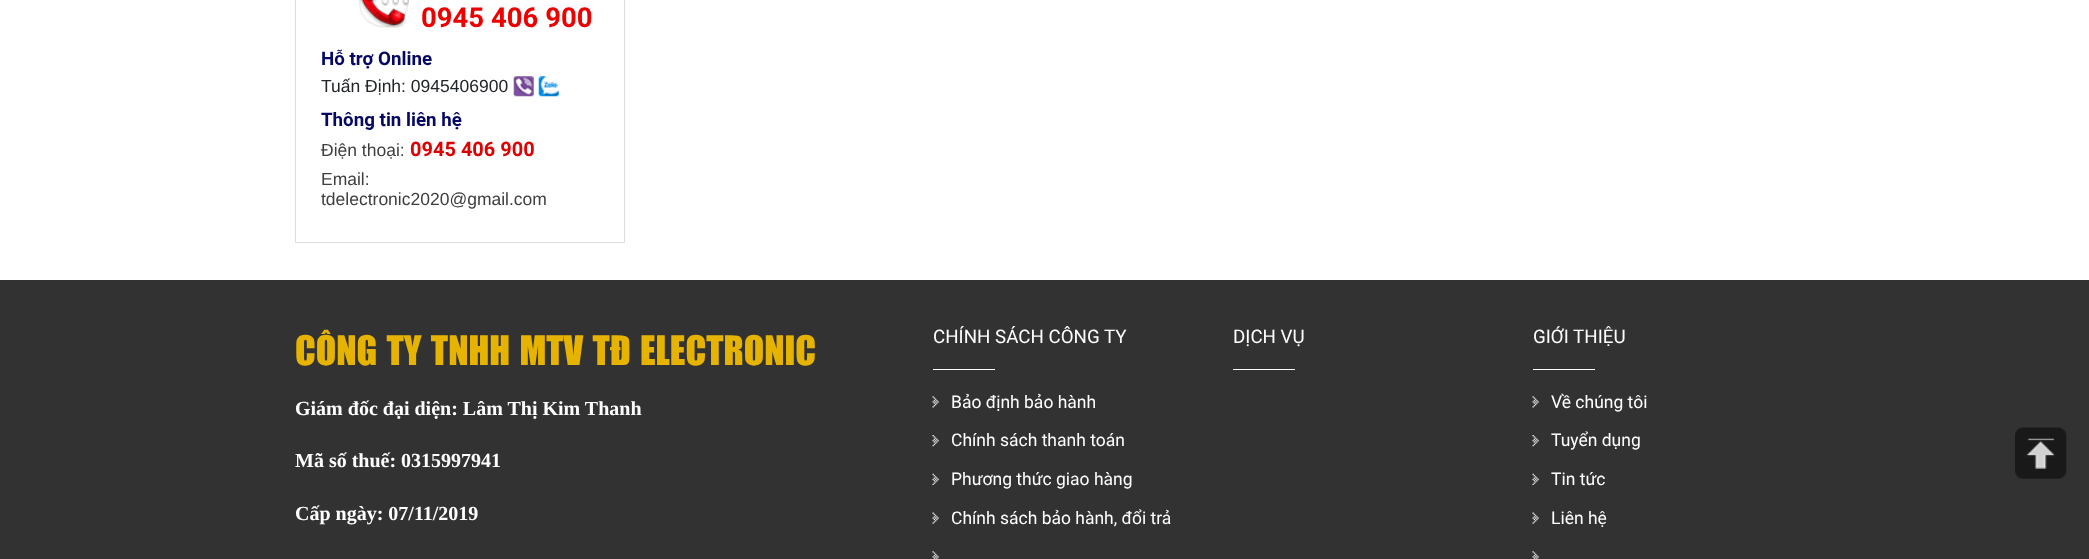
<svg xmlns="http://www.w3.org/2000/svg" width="2089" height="559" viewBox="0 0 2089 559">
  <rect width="100%" height="100%" fill="#ffffff"/>
  <rect x="295.5" y="-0.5" width="329" height="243" fill="none" stroke="#dedede"/>
  <image x="359" y="0" width="50" height="28" href="img1.png"/>
  <text x="421" y="27" font-family="Roboto" font-size="27.5" font-weight="bold" fill="#ed0000">0945 406 900</text>
  <text x="321" y="65" font-family="Roboto" font-size="18.75" font-weight="bold" fill="#070864">Hỗ trợ Online</text>
  <text x="321" y="92" font-family="Liberation Sans" font-size="17.5" fill="#212529">Tuấn Định: 0945406900</text>
  <image x="513" y="76" width="21" height="21" href="img2.png"/>
  <image x="538" y="76" width="21" height="21" href="img3.png"/>
  <text x="321" y="126" font-family="Roboto" font-size="18.75" font-weight="bold" fill="#070864">Thông tin liên hệ</text>
  <text x="321" y="156" font-family="Liberation Sans" font-size="17.5" fill="#3e3e3e">Điện thoại:</text>
  <text x="410" y="156" font-family="Roboto" font-size="20" font-weight="bold" fill="#dd0303">0945 406 900</text>
  <text x="321" y="185" font-family="Liberation Sans" font-size="17.5" fill="#3e3e3e">Email:</text>
  <text x="321" y="205" font-family="Liberation Sans" font-size="17.5" fill="#3e3e3e">tdelectronic2020@gmail.com</text>
  <rect x="0" y="280" width="2089" height="279" fill="#323232"/>
  <text x="295" y="365" font-family="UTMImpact" font-size="37.5" fill="#e6b400">CÔNG TY TNHH MTV TĐ ELECTRONIC</text>
  <text x="295" y="415" font-family="Liberation Serif" font-size="20" font-weight="bold" fill="#ffffff">Giám đốc đại diện: Lâm Thị Kim Thanh</text>
  <text x="295" y="467" font-family="Liberation Serif" font-size="20" font-weight="bold" fill="#ffffff">Mã số thuế: 0315997941</text>
  <text x="295" y="520" font-family="Liberation Serif" font-size="20" font-weight="bold" fill="#ffffff">Cấp ngày: 07/11/2019</text>
  <text x="933" y="343" font-family="Roboto" font-size="18.75" fill="#ffffff">CHÍNH SÁCH CÔNG TY</text>
  <rect x="933" y="369" width="62" height="1" fill="#ffffff"/>
  <image x="932" y="396" width="7" height="12" href="img4.png"/>
  <text x="951" y="408" font-family="Roboto" font-size="17.5" fill="#ffffff">Bảo định bảo hành</text>
  <image x="932" y="435" width="7" height="12" href="img5.png"/>
  <text x="951" y="446" font-family="Roboto" font-size="17.5" fill="#ffffff">Chính sách thanh toán</text>
  <image x="932" y="473" width="7" height="12" href="img6.png"/>
  <text x="951" y="485" font-family="Roboto" font-size="17.5" fill="#ffffff">Phương thức giao hàng</text>
  <image x="932" y="512" width="7" height="12" href="img7.png"/>
  <text x="951" y="524" font-family="Roboto" font-size="17.5" fill="#ffffff">Chính sách bảo hành, đổi trả</text>
  <image x="932" y="551" width="7" height="8" href="img8.png"/>
  <text x="1233" y="343" font-family="Roboto" font-size="18.75" fill="#ffffff">DỊCH VỤ</text>
  <rect x="1233" y="369" width="62" height="1" fill="#ffffff"/>
  <text x="1533" y="343" font-family="Roboto" font-size="18.75" fill="#ffffff">GIỚI THIỆU</text>
  <rect x="1533" y="369" width="62" height="1" fill="#ffffff"/>
  <image x="1532" y="396" width="7" height="12" href="img4.png"/>
  <text x="1551" y="408" font-family="Roboto" font-size="17.5" fill="#ffffff">Về chúng tôi</text>
  <image x="1532" y="435" width="7" height="12" href="img5.png"/>
  <text x="1551" y="446" font-family="Roboto" font-size="17.5" fill="#ffffff">Tuyển dụng</text>
  <image x="1532" y="473" width="7" height="12" href="img6.png"/>
  <text x="1551" y="485" font-family="Roboto" font-size="17.5" fill="#ffffff">Tin tức</text>
  <image x="1532" y="512" width="7" height="12" href="img7.png"/>
  <text x="1551" y="524" font-family="Roboto" font-size="17.5" fill="#ffffff">Liên hệ</text>
  <image x="1532" y="551" width="7" height="8" href="img8.png"/>
  <image x="2015" y="427" width="52" height="52" href="img9.png"/>
</svg>
